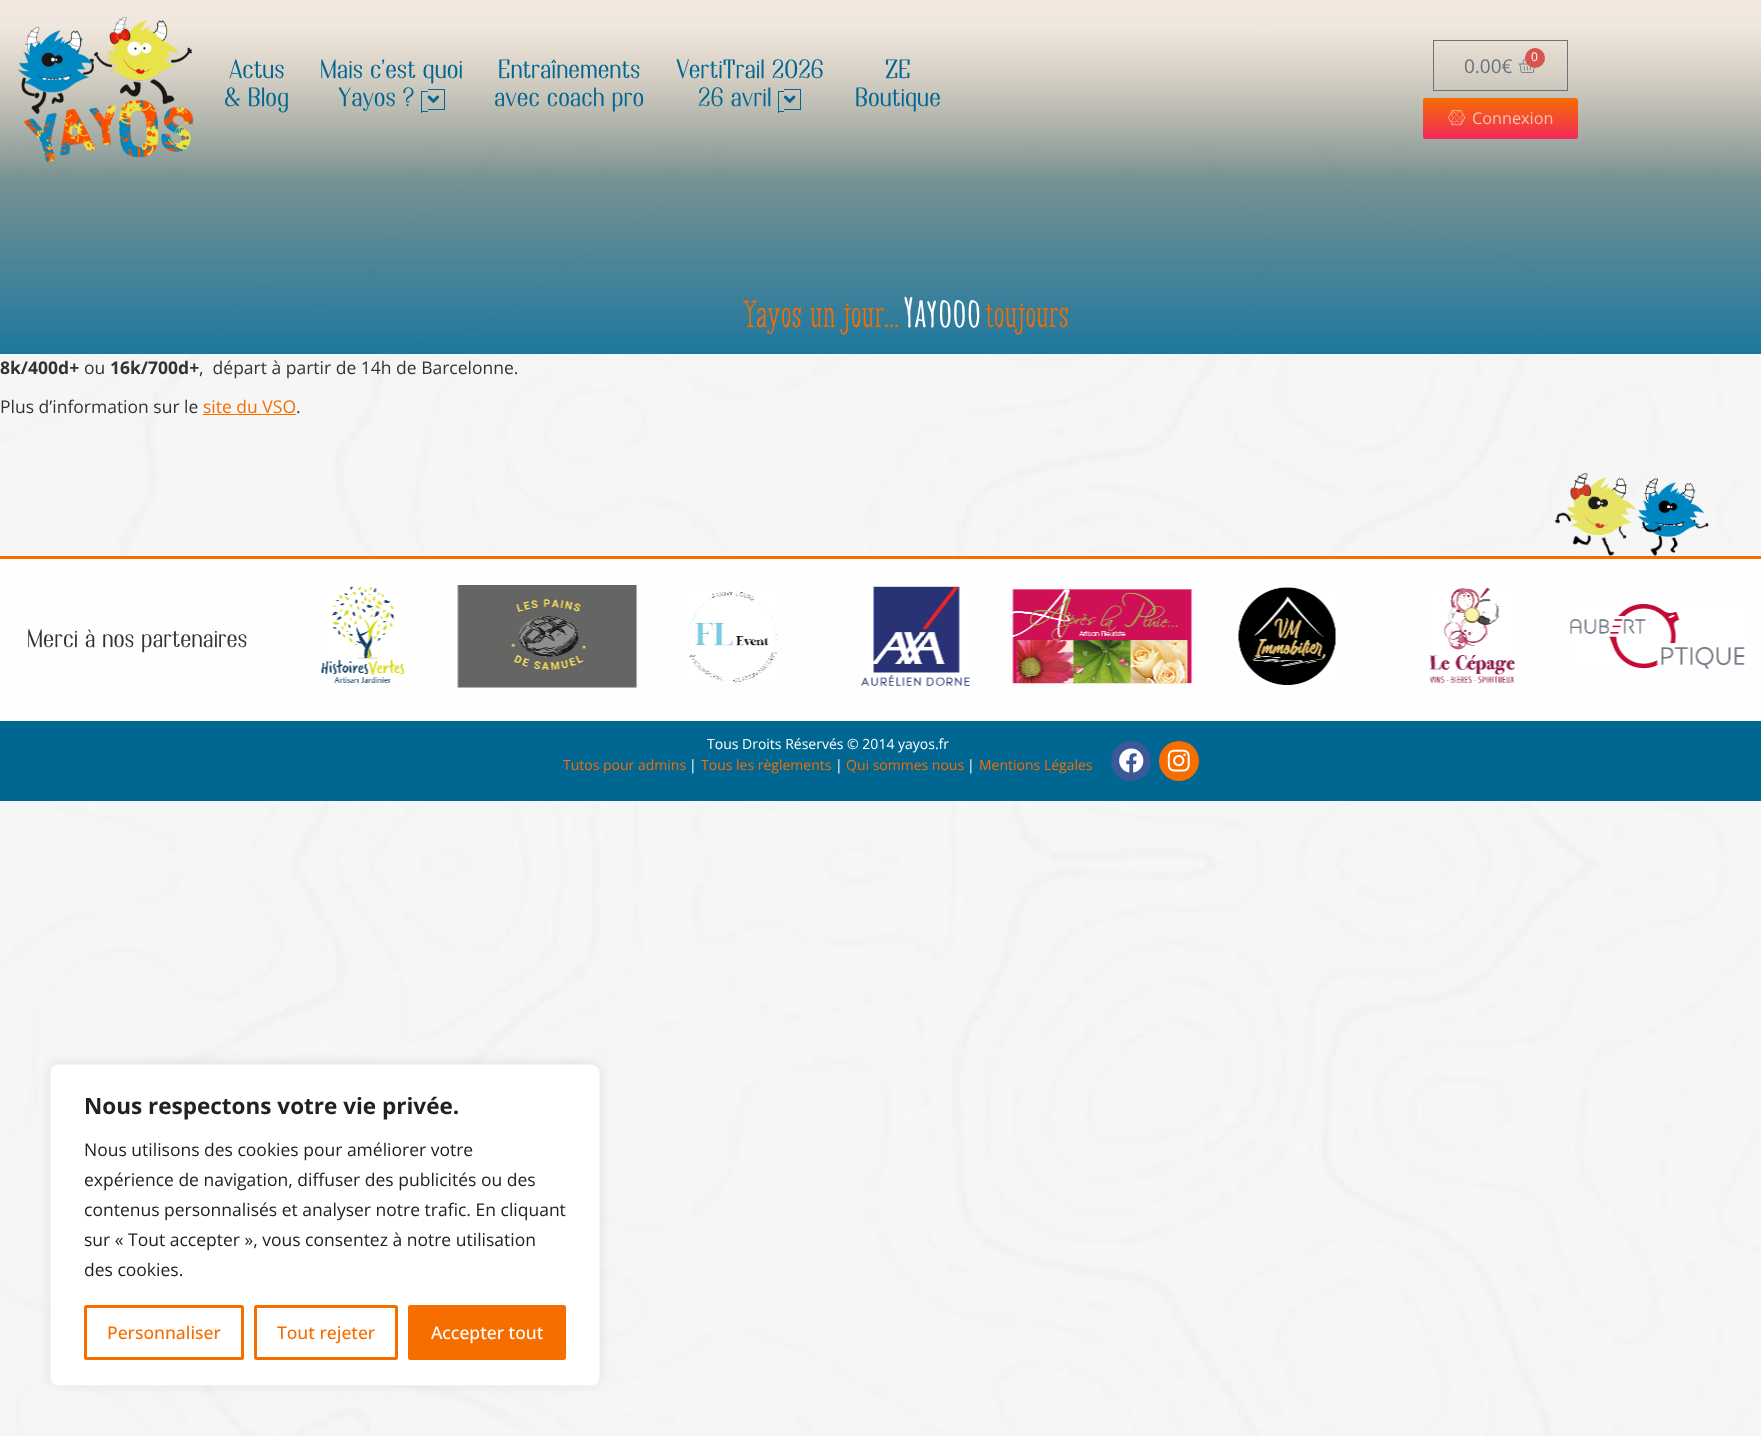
<svg xmlns="http://www.w3.org/2000/svg" width="1761" height="1436" viewBox="0 0 1761 1436">
  <defs>
    <linearGradient id="g1" gradientUnits="userSpaceOnUse" x1="1500" y1="98" x2="1500" y2="139"><stop offset="0" stop-color="#f66d00"/><stop offset="1" stop-color="#f2295b"/></linearGradient>
    <filter id="blur1" x="-50%" y="-200%" width="200%" height="500%"><feGaussianBlur stdDeviation="6"/></filter>
  </defs>
  <rect width="100%" height="100%" fill="#ffffff"/>
  <image x="0" y="0" width="1761" height="1436" href="img1.png"/>
  <image x="18" y="17" width="176" height="146" href="img2.png"/>
  <text x="229" y="78" font-family="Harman" font-size="26.25" fill="#006692">Actus</text>
  <text x="224" y="106" font-family="Harman" font-size="26.25" fill="#006692">&amp; Blog</text>
  <text x="320" y="78" font-family="Harman" font-size="26.25" fill="#006692">Mais c’est quoi</text>
  <text x="338" y="106" font-family="Harman" font-size="26.25" fill="#006692">Yayos ?</text>
  <rect x="421" y="91" width="7" height="1" fill="#006692"/>
  <rect x="421" y="111" width="7" height="1" fill="#006692"/>
  <rect x="421" y="91" width="1" height="22" fill="#006692"/>
  <rect x="428" y="89" width="17" height="1" fill="#006692"/>
  <rect x="444" y="89" width="1" height="21" fill="#006692"/>
  <rect x="428" y="109" width="17" height="1" fill="#006692"/>
  <image x="427" y="95" width="13" height="8" href="img3.png"/>
  <text x="498" y="78" font-family="Harman" font-size="26.25" fill="#006692">Entraînements</text>
  <text x="494" y="106" font-family="Harman" font-size="26.25" fill="#006692">avec coach pro</text>
  <text x="676" y="78" font-family="Harman" font-size="26.25" fill="#006692">VertiTrail 2026</text>
  <text x="698" y="106" font-family="Harman" font-size="26.25" fill="#006692">26 avril</text>
  <rect x="778" y="91" width="6" height="1" fill="#006692"/>
  <rect x="778" y="111" width="6" height="1" fill="#006692"/>
  <rect x="778" y="91" width="1" height="22" fill="#006692"/>
  <rect x="784" y="89" width="17" height="1" fill="#006692"/>
  <rect x="800" y="89" width="1" height="21" fill="#006692"/>
  <rect x="784" y="109" width="17" height="1" fill="#006692"/>
  <image x="783" y="95" width="13" height="8" href="img4.png"/>
  <text x="885" y="78" font-family="Harman" font-size="26.25" fill="#006692">ZE</text>
  <text x="855" y="106" font-family="Harman" font-size="26.25" fill="#006692">Boutique</text>
  <rect x="1433.5" y="40.5" width="134" height="50" fill="none" stroke="#69727d"/>
  <image x="1518" y="58" width="17" height="15" href="img5.png"/>
  <circle cx="1535" cy="58" r="10" fill="#d9534f"/>
  <text x="1531" y="61" font-family="Open Sans" font-size="12" fill="#ffffff">0</text>
  <text x="1464" y="73" font-family="Open Sans" font-size="19" fill="#69727d">0.00€</text>
  <rect x="1423" y="98" width="155" height="41" rx="2.5" fill="url(#g1)"/>
  <image x="1448" y="110" width="18" height="16" href="img6.png"/>
  <text x="1472" y="124" font-family="Open Sans" font-size="16.25" fill="#fbc1b8">Connexion</text>
  <text x="742" y="327" font-family="'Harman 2'" font-size="37.5" fill="#f66d00">Yayos un jour...</text>
  <text x="904" y="327" font-family="Amatic SC" font-size="40" font-weight="bold" fill="#ffffff">Yayooo</text>
  <text x="985" y="327" font-family="'Harman 2'" font-size="37.5" fill="#f66d00">toujours</text>
  <text x="0" y="374" font-family="Open Sans" font-size="17.5" font-weight="bold" fill="#333333">8k/400d+</text>
  <text x="84" y="374" font-family="Open Sans" font-size="17.5" fill="#333333">ou</text>
  <text x="110" y="374" font-family="Open Sans" font-size="17.5" font-weight="bold" fill="#333333">16k/700d+</text>
  <text x="199" y="374" font-family="Open Sans" font-size="17.5" fill="#333333" xml:space="preserve">,  départ à partir de 14h de Barcelonne.</text>
  <text x="0" y="413" font-family="Open Sans" font-size="17.5" fill="#333333">Plus d’information sur le</text>
  <text x="203" y="413" font-family="Open Sans" font-size="17.5" fill="#f66d00">site du VSO</text>
  <rect x="203" y="414" width="93" height="1" fill="#f66d00"/>
  <text x="296" y="413" font-family="Open Sans" font-size="17.5" fill="#333333">.</text>
  <image x="1637" y="478" width="72" height="78" href="img7.png"/>
  <image x="1554" y="472" width="83" height="84" href="img8.png"/>
  <rect x="0" y="559" width="1761" height="162" fill="#ffffff" fill-opacity="0.88"/>
  <rect x="0" y="556" width="1761" height="3" fill="#f66d00"/>
  <text x="27" y="647" font-family="Harman" font-size="25" fill="#333333">Merci à nos partenaires</text>
  <image x="321" y="586" width="84" height="97" href="img9.png"/>
  <image x="457" y="585" width="181" height="103" href="img10.png"/>
  <image x="687" y="591" width="91" height="92" href="img11.png"/>
  <image x="860" y="586" width="110" height="100" href="img12.png"/>
  <image x="1012" y="589" width="181" height="95" href="img13.png"/>
  <image x="1238" y="587" width="98" height="98" href="img14.png"/>
  <image x="1429" y="587" width="87" height="96" href="img15.png"/>
  <image x="1569" y="604" width="176" height="65" href="img16.png"/>
  <rect x="0" y="721" width="1761" height="80" fill="#006692"/>
  <text x="707" y="749" font-family="Open Sans" font-size="14" fill="#ffffff">Tous Droits Réservés © 2014 yayos.fr</text>
  <text x="563" y="770" font-family="Open Sans" font-size="14" fill="#f66d00">Tutos pour admins</text>
  <text x="689" y="770" font-family="Open Sans" font-size="14" fill="#ffffff">|</text>
  <text x="701" y="770" font-family="Open Sans" font-size="14" fill="#f66d00">Tous les règlements</text>
  <text x="835" y="770" font-family="Open Sans" font-size="14" fill="#ffffff">|</text>
  <text x="846" y="770" font-family="Open Sans" font-size="14" fill="#f66d00">Qui sommes nous</text>
  <text x="967" y="770" font-family="Open Sans" font-size="14" fill="#ffffff">|</text>
  <text x="979" y="770" font-family="Open Sans" font-size="14" fill="#f66d00">Mentions Légales</text>
  <circle cx="1131" cy="761" r="20" fill="#3b5998"/>
  <image x="1119" y="748" width="25" height="25" href="img17.png"/>
  <circle cx="1179" cy="761" r="20" fill="#f66d00"/>
  <image x="1167" y="749" width="23" height="23" href="img18.png"/>
  <rect x="50" y="1063" width="550" height="322" rx="8" fill="#acabab" fill-opacity="0.3" filter="url(#blur1)"/>
  <rect x="50.5" y="1064.5" width="549" height="321" rx="7.5" fill="#ffffff" stroke="#f4f4f4"/>
  <text x="84" y="1114" font-family="Open Sans" font-size="22.5" font-weight="bold" fill="#212121">Nous respectons votre vie privée.</text>
  <text x="84" y="1156" font-family="Open Sans" font-size="17.5" fill="#212121">Nous utilisons des cookies pour améliorer votre</text>
  <text x="84" y="1186" font-family="Open Sans" font-size="17.5" fill="#212121">expérience de navigation, diffuser des publicités ou des</text>
  <text x="84" y="1216" font-family="Open Sans" font-size="17.5" fill="#212121">contenus personnalisés et analyser notre trafic. En cliquant</text>
  <text x="84" y="1246" font-family="Open Sans" font-size="17.5" fill="#212121">sur « Tout accepter », vous consentez à notre utilisation</text>
  <text x="84" y="1276" font-family="Open Sans" font-size="17.5" fill="#212121">des cookies.</text>
  <rect x="85.5" y="1306.5" width="157" height="52" rx="1" fill="none" stroke="#f66d00" stroke-width="3"/>
  <text x="107" y="1339" font-family="Open Sans" font-size="17.5" font-weight="500" fill="#f66d00">Personnaliser</text>
  <rect x="255.5" y="1306.5" width="141" height="52" rx="1" fill="none" stroke="#f66d00" stroke-width="3"/>
  <text x="277" y="1339" font-family="Open Sans" font-size="17.5" font-weight="500" fill="#f66d00">Tout rejeter</text>
  <rect x="409.5" y="1306.5" width="155" height="52" rx="1" fill="#f66d00" stroke="#f66d00" stroke-width="3"/>
  <text x="431" y="1339" font-family="Open Sans" font-size="17.5" font-weight="500" fill="#ffffff">Accepter tout</text>
</svg>
